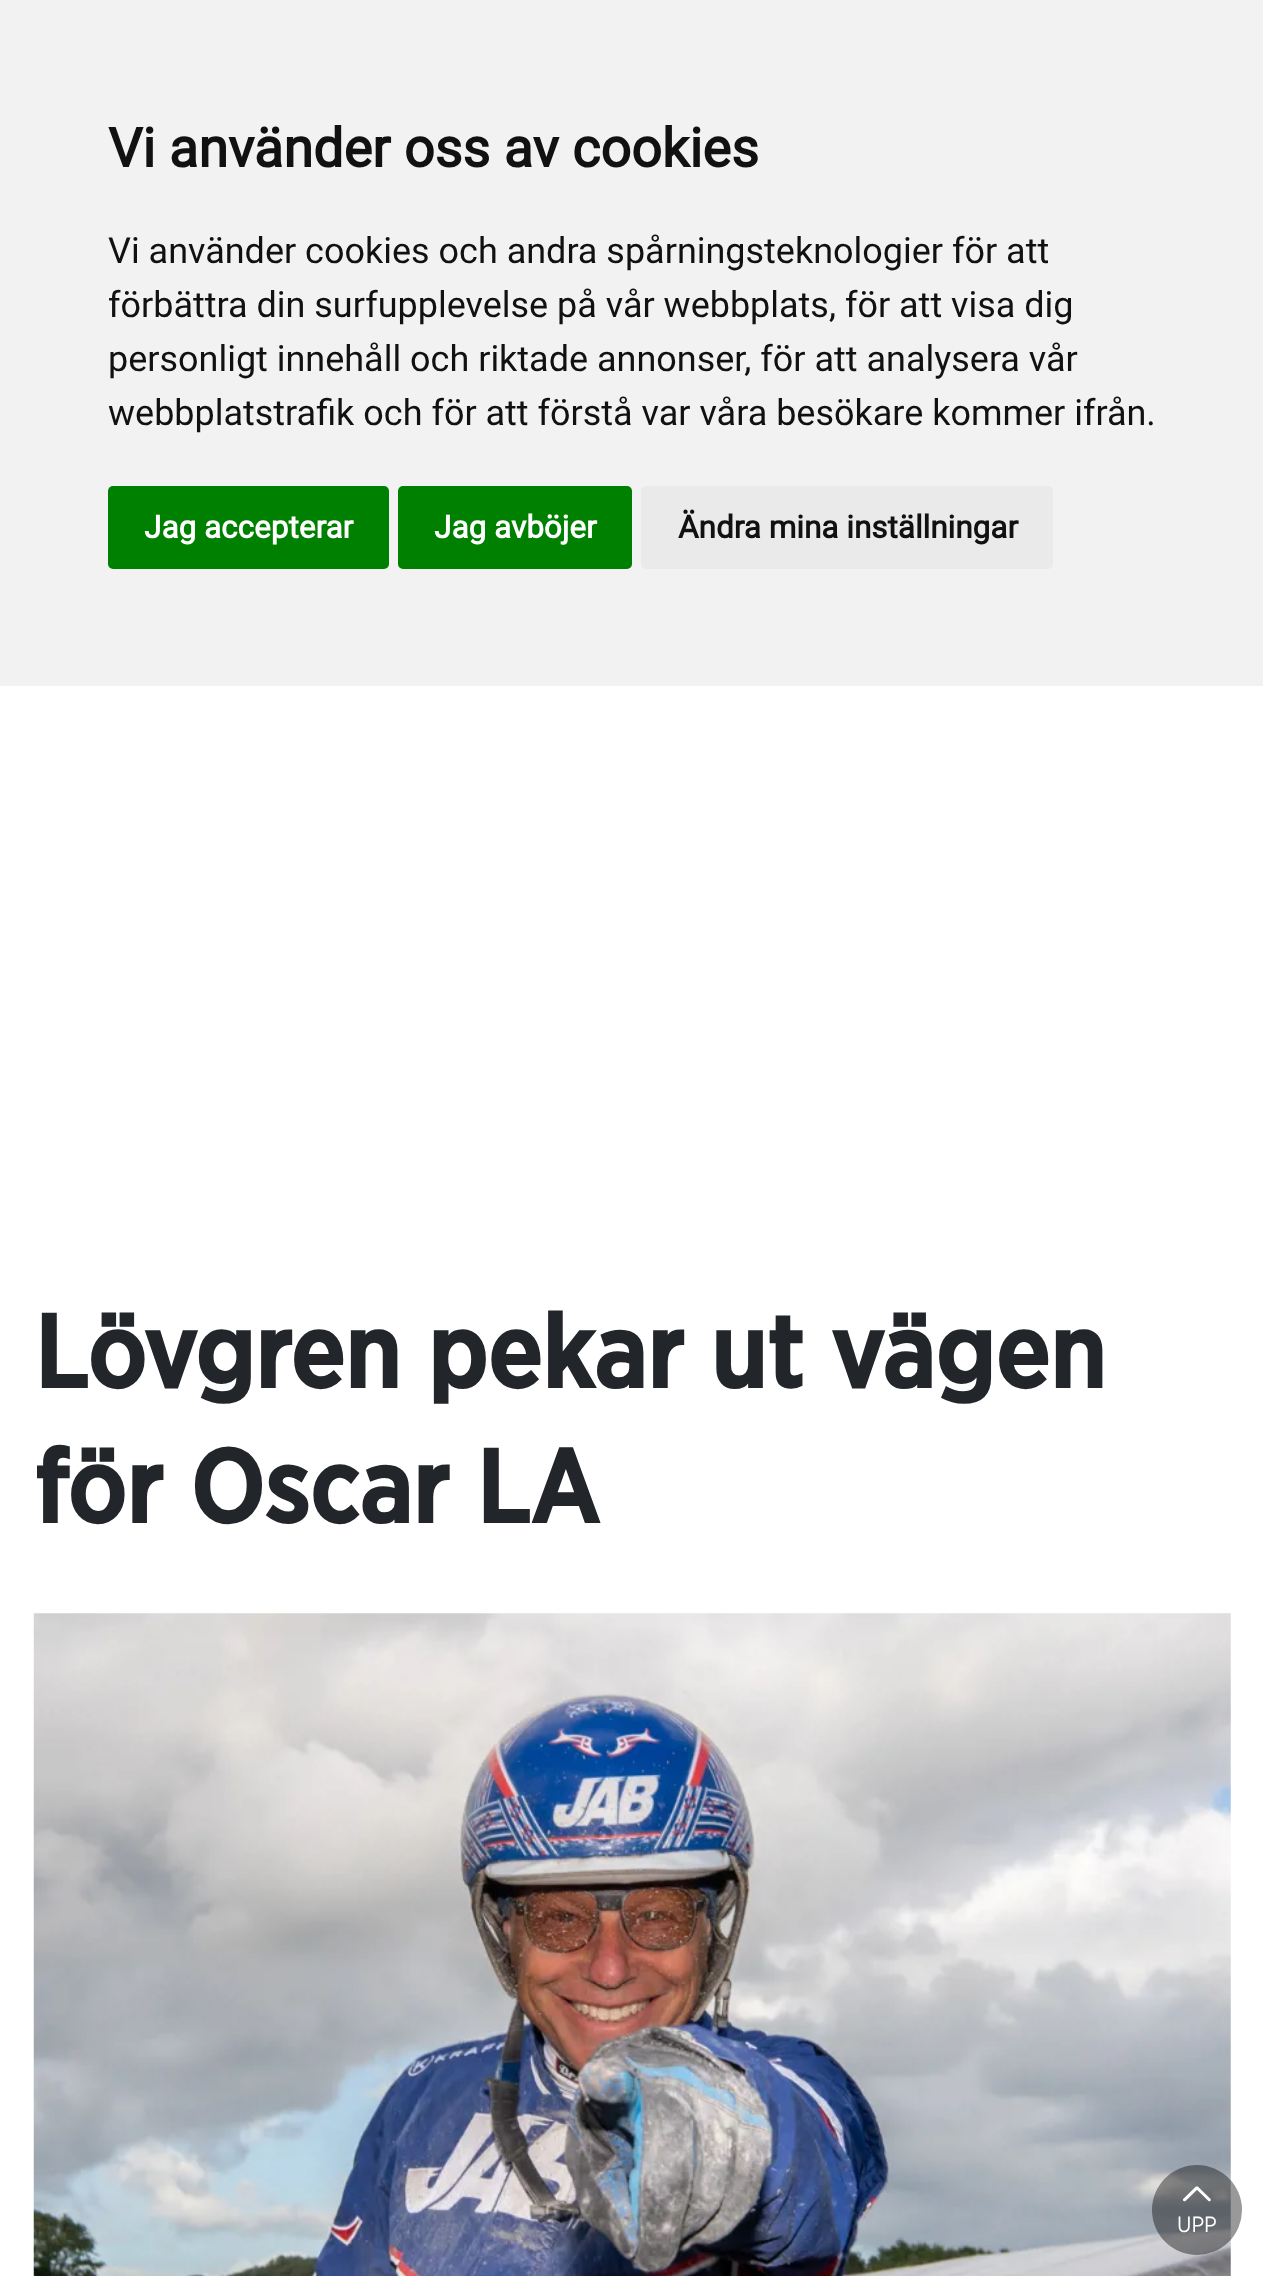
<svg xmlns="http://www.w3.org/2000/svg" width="1263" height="2276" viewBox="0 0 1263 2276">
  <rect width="100%" height="100%" fill="#ffffff"/>
  <rect x="0" y="0" width="1263" height="686" fill="#f2f2f2"/>
  <text x="108" y="167" font-family="Roboto" font-size="54" font-weight="bold" fill="#111111">Vi använder oss av cookies</text>
  <text x="108" y="263" font-family="Roboto" font-size="36" fill="#111111">Vi använder cookies och andra spårningsteknologier för att</text>
  <text x="108" y="317" font-family="Roboto" font-size="36" fill="#111111">förbättra din surfupplevelse på vår webbplats, för att visa dig</text>
  <text x="108" y="371" font-family="Roboto" font-size="36" fill="#111111">personligt innehåll och riktade annonser, för att analysera vår</text>
  <text x="108" y="425" font-family="Roboto" font-size="36" fill="#111111">webbplatstrafik och för att förstå var våra besökare kommer ifrån.</text>
  <rect x="108" y="486" width="281" height="83" rx="5" fill="#008000"/>
  <text x="144" y="538" font-family="Roboto" font-size="31.5" font-weight="bold" fill="#ffffff">Jag accepterar</text>
  <rect x="398" y="486" width="234" height="83" rx="5" fill="#008000"/>
  <text x="434" y="538" font-family="Roboto" font-size="31.5" font-weight="bold" fill="#ffffff">Jag avböjer</text>
  <rect x="641" y="486" width="412" height="83" rx="5" fill="#eaeaea"/>
  <text x="678" y="538" font-family="Roboto" font-size="31.5" font-weight="bold" fill="#111111">Ändra mina inställningar</text>
  <text x="34" y="1388" font-family="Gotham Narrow" font-size="103.5" font-weight="bold" fill="#22252a">Lövgren pekar ut vägen</text>
  <text x="34" y="1523" font-family="Gotham Narrow" font-size="103.5" font-weight="bold" fill="#22252a">för Oscar LA</text>
  <image x="33" y="1613" width="1198" height="663" href="img1.png"/>
  <circle cx="1197" cy="2210" r="45" fill="#000000" fill-opacity="0.4"/>
  <image x="1183" y="2186" width="28" height="16" href="img2.png"/>
  <text x="1177" y="2232" font-family="Gotham Narrow" font-size="22" fill="#ffffff">UPP</text>
</svg>
